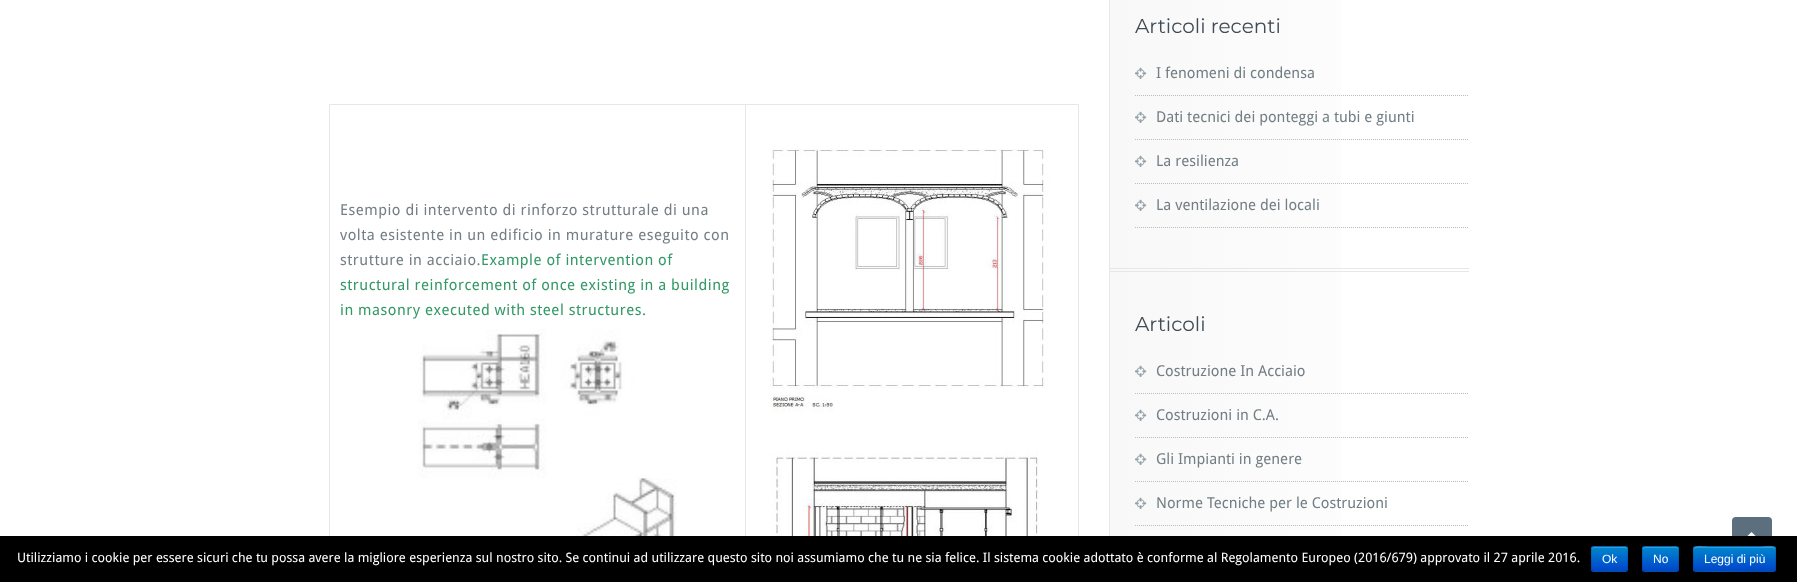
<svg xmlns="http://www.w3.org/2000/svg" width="1797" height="582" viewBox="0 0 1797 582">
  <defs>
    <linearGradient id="g1" gradientUnits="userSpaceOnUse" x1="1110" y1="270" x2="1469" y2="270"><stop offset="0" stop-color="#f8f8f8"/><stop offset="1" stop-color="#ffffff"/></linearGradient>
    <clipPath id="clip1"><rect x="1591" y="546" width="37" height="26" rx="3"/></clipPath>
    <linearGradient id="g2" gradientUnits="userSpaceOnUse" x1="1610" y1="547" x2="1610" y2="571"><stop offset="0" stop-color="#0088cc"/><stop offset="1" stop-color="#0044cc"/></linearGradient>
    <clipPath id="clip2"><rect x="1642" y="546" width="37" height="26" rx="3"/></clipPath>
    <linearGradient id="g3" gradientUnits="userSpaceOnUse" x1="1661" y1="547" x2="1661" y2="571"><stop offset="0" stop-color="#0088cc"/><stop offset="1" stop-color="#0044cc"/></linearGradient>
    <clipPath id="clip3"><rect x="1693" y="546" width="83" height="26" rx="3"/></clipPath>
    <linearGradient id="g4" gradientUnits="userSpaceOnUse" x1="1735" y1="547" x2="1735" y2="571"><stop offset="0" stop-color="#0088cc"/><stop offset="1" stop-color="#0044cc"/></linearGradient>
  </defs>
  <rect width="100%" height="100%" fill="#ffffff"/>
  <rect x="329" y="104" width="750" height="1" fill="#e4e8ea"/>
  <rect x="1078" y="104" width="1" height="432" fill="#e4e8ea"/>
  <rect x="329" y="104" width="1" height="432" fill="#e4e8ea"/>
  <text x="340" y="215" font-family="Droid Sans" font-size="15" letter-spacing="0.5" fill="#737f85">Esempio di intervento di rinforzo strutturale di una</text>
  <text x="340" y="240" font-family="Droid Sans" font-size="15" letter-spacing="0.5" fill="#737f85">volta esistente in un edificio in murature eseguito con</text>
  <text x="340" y="265" font-family="Droid Sans" font-size="15" letter-spacing="0.5" fill="#737f85">strutture in acciaio.</text>
  <text x="481" y="265" font-family="Droid Sans" font-size="15" letter-spacing="0.5" fill="#339966">Example of intervention of</text>
  <text x="340" y="290" font-family="Droid Sans" font-size="15" letter-spacing="0.5" fill="#339966">structural reinforcement of once existing in a building</text>
  <text x="340" y="315" font-family="Droid Sans" font-size="15" letter-spacing="0.5" fill="#339966">in masonry executed with steel structures.</text>
  <image x="418" y="329" width="259" height="207" href="img1.png"/>
  <rect x="745" y="104" width="1" height="432" fill="#e4e8ea"/>
  <image x="770" y="149" width="280" height="264" href="img2.png"/>
  <image x="770" y="451" width="270" height="85" href="img3.png"/>
  <rect x="1110" y="0" width="231" height="536" fill="url(#g1)"/>
  <rect x="1109" y="0" width="1" height="536" fill="#e4e8ea"/>
  <rect x="1110" y="268" width="359" height="1" fill="#e4e8ea"/>
  <rect x="1110" y="271" width="359" height="1" fill="#e4e8ea"/>
  <text x="1135" y="33" font-family="Montserrat" font-size="20" fill="#404b56">Articoli recenti</text>
  <path d="M1135 95.5H1469" fill="none" stroke="#b4bfc5" stroke-dasharray="1 1"/>
  <image x="1135" y="67" width="12" height="12" href="img4.png"/>
  <text x="1156" y="78" font-family="Droid Sans" font-size="15" fill="#737f85">I fenomeni di condensa</text>
  <path d="M1135 139.5H1469" fill="none" stroke="#b4bfc5" stroke-dasharray="1 1"/>
  <image x="1135" y="111" width="12" height="12" href="img4.png"/>
  <text x="1156" y="122" font-family="Droid Sans" font-size="15" fill="#737f85">Dati tecnici dei ponteggi a tubi e giunti</text>
  <path d="M1135 183.5H1469" fill="none" stroke="#b4bfc5" stroke-dasharray="1 1"/>
  <image x="1135" y="155" width="12" height="12" href="img4.png"/>
  <text x="1156" y="166" font-family="Droid Sans" font-size="15" fill="#737f85">La resilienza</text>
  <path d="M1135 227.5H1469" fill="none" stroke="#b4bfc5" stroke-dasharray="1 1"/>
  <image x="1135" y="199" width="12" height="12" href="img4.png"/>
  <text x="1156" y="210" font-family="Droid Sans" font-size="15" fill="#737f85">La ventilazione dei locali</text>
  <text x="1135" y="331" font-family="Montserrat" font-size="20" fill="#404b56">Articoli</text>
  <path d="M1135 393.5H1469" fill="none" stroke="#b4bfc5" stroke-dasharray="1 1"/>
  <image x="1135" y="365" width="12" height="12" href="img4.png"/>
  <text x="1156" y="376" font-family="Droid Sans" font-size="15" fill="#737f85">Costruzione In Acciaio</text>
  <path d="M1135 437.5H1469" fill="none" stroke="#b4bfc5" stroke-dasharray="1 1"/>
  <image x="1135" y="409" width="12" height="12" href="img4.png"/>
  <text x="1156" y="420" font-family="Droid Sans" font-size="15" fill="#737f85">Costruzioni in C.A.</text>
  <path d="M1135 481.5H1469" fill="none" stroke="#b4bfc5" stroke-dasharray="1 1"/>
  <image x="1135" y="453" width="12" height="12" href="img4.png"/>
  <text x="1156" y="464" font-family="Droid Sans" font-size="15" fill="#737f85">Gli Impianti in genere</text>
  <path d="M1135 525.5H1469" fill="none" stroke="#b4bfc5" stroke-dasharray="1 1"/>
  <image x="1135" y="497" width="12" height="12" href="img4.png"/>
  <text x="1156" y="508" font-family="Droid Sans" font-size="15" fill="#737f85">Norme Tecniche per le Costruzioni</text>
  <rect x="1732" y="517" width="40" height="40" rx="4" fill="#5b6f7f"/>
  <image x="1747" y="532" width="9" height="4" href="img5.png"/>
  <rect x="0" y="536" width="1797" height="46" fill="#000000"/>
  <text x="17" y="562" font-family="Droid Sans" font-size="13" fill="#ffffff">Utilizziamo i cookie per essere sicuri che tu possa avere la migliore esperienza sul nostro sito. Se continui ad utilizzare questo sito noi assumiamo che tu ne sia felice. Il sistema cookie adottato è conforme al Regolamento Europeo (2016/679) approvato il 27 aprile 2016.</text>
  <rect x="1591" y="546" width="37" height="26" rx="3" fill="#006dcc"/>
  <g clip-path="url(#clip1)">
    <rect x="1591" y="547" width="37" height="24" fill="url(#g2)"/>
  </g>
  <path d="M1594 548H1625C1626 548 1627 549 1627 550C1627 545.5 1623.5 547 1620 547H1599C1595.5 547 1592 545.5 1592 550C1592 549 1593 548 1594 548Z" fill="#ffffff" fill-opacity="0.2"/>
  <path d="M1627 571C1626.5 571 1625.5 571.5 1625 571.5H1594C1593.5 571.5 1592.5 571 1592 571" fill="none" stroke="#000000" stroke-opacity="0.25"/>
  <path d="M1592 571C1592 570.5 1591.5 569.5 1591.5 569V549C1591.5 548.5 1592 547.5 1592 547C1592.5 547 1593.5 546.5 1594 546.5H1625C1625.5 546.5 1626.5 547 1627 547C1627 547.5 1627.5 548.5 1627.5 549V569C1627.5 569.5 1627 570.5 1627 571" fill="none" stroke="#000000" stroke-opacity="0.1"/>
  <text x="1602" y="563" font-family="Liberation Sans" font-size="12" fill="#ffffff">Ok</text>
  <rect x="1642" y="546" width="37" height="26" rx="3" fill="#006dcc"/>
  <g clip-path="url(#clip2)">
    <rect x="1642" y="547" width="37" height="24" fill="url(#g3)"/>
  </g>
  <path d="M1645 548H1676C1677 548 1678 549 1678 550C1678 545.5 1674.5 547 1671 547H1650C1646.5 547 1643 545.5 1643 550C1643 549 1644 548 1645 548Z" fill="#ffffff" fill-opacity="0.2"/>
  <path d="M1678 571C1677.5 571 1676.5 571.5 1676 571.5H1645C1644.5 571.5 1643.5 571 1643 571" fill="none" stroke="#000000" stroke-opacity="0.25"/>
  <path d="M1643 571C1643 570.5 1642.5 569.5 1642.5 569V549C1642.5 548.5 1643 547.5 1643 547C1643.5 547 1644.5 546.5 1645 546.5H1676C1676.5 546.5 1677.5 547 1678 547C1678 547.5 1678.5 548.5 1678.5 549V569C1678.5 569.5 1678 570.5 1678 571" fill="none" stroke="#000000" stroke-opacity="0.1"/>
  <text x="1653" y="563" font-family="Liberation Sans" font-size="12" fill="#ffffff">No</text>
  <rect x="1693" y="546" width="83" height="26" rx="3" fill="#006dcc"/>
  <g clip-path="url(#clip3)">
    <rect x="1693" y="547" width="83" height="24" fill="url(#g4)"/>
  </g>
  <path d="M1696 548H1773C1774 548 1775 549 1775 550C1775 543 1763 547 1760 547H1709C1706 547 1694 543 1694 550C1694 549 1695 548 1696 548Z" fill="#ffffff" fill-opacity="0.2"/>
  <path d="M1775 571L1773 571.5H1760C1753 571.5 1696.5 572.5 1694.5 571H1694" fill="none" stroke="#000000" stroke-opacity="0.25"/>
  <path d="M1694 571C1692.5 569 1693.5 564.5 1693.5 562.5C1693.5 543.5 1690 546.5 1709 546.5H1760C1779 546.5 1775.5 543.5 1775.5 562.5C1775.5 564.5 1776.5 569 1775 571" fill="none" stroke="#000000" stroke-opacity="0.1"/>
  <text x="1704" y="563" font-family="Liberation Sans" font-size="12" fill="#ffffff">Leggi di più</text>
</svg>
